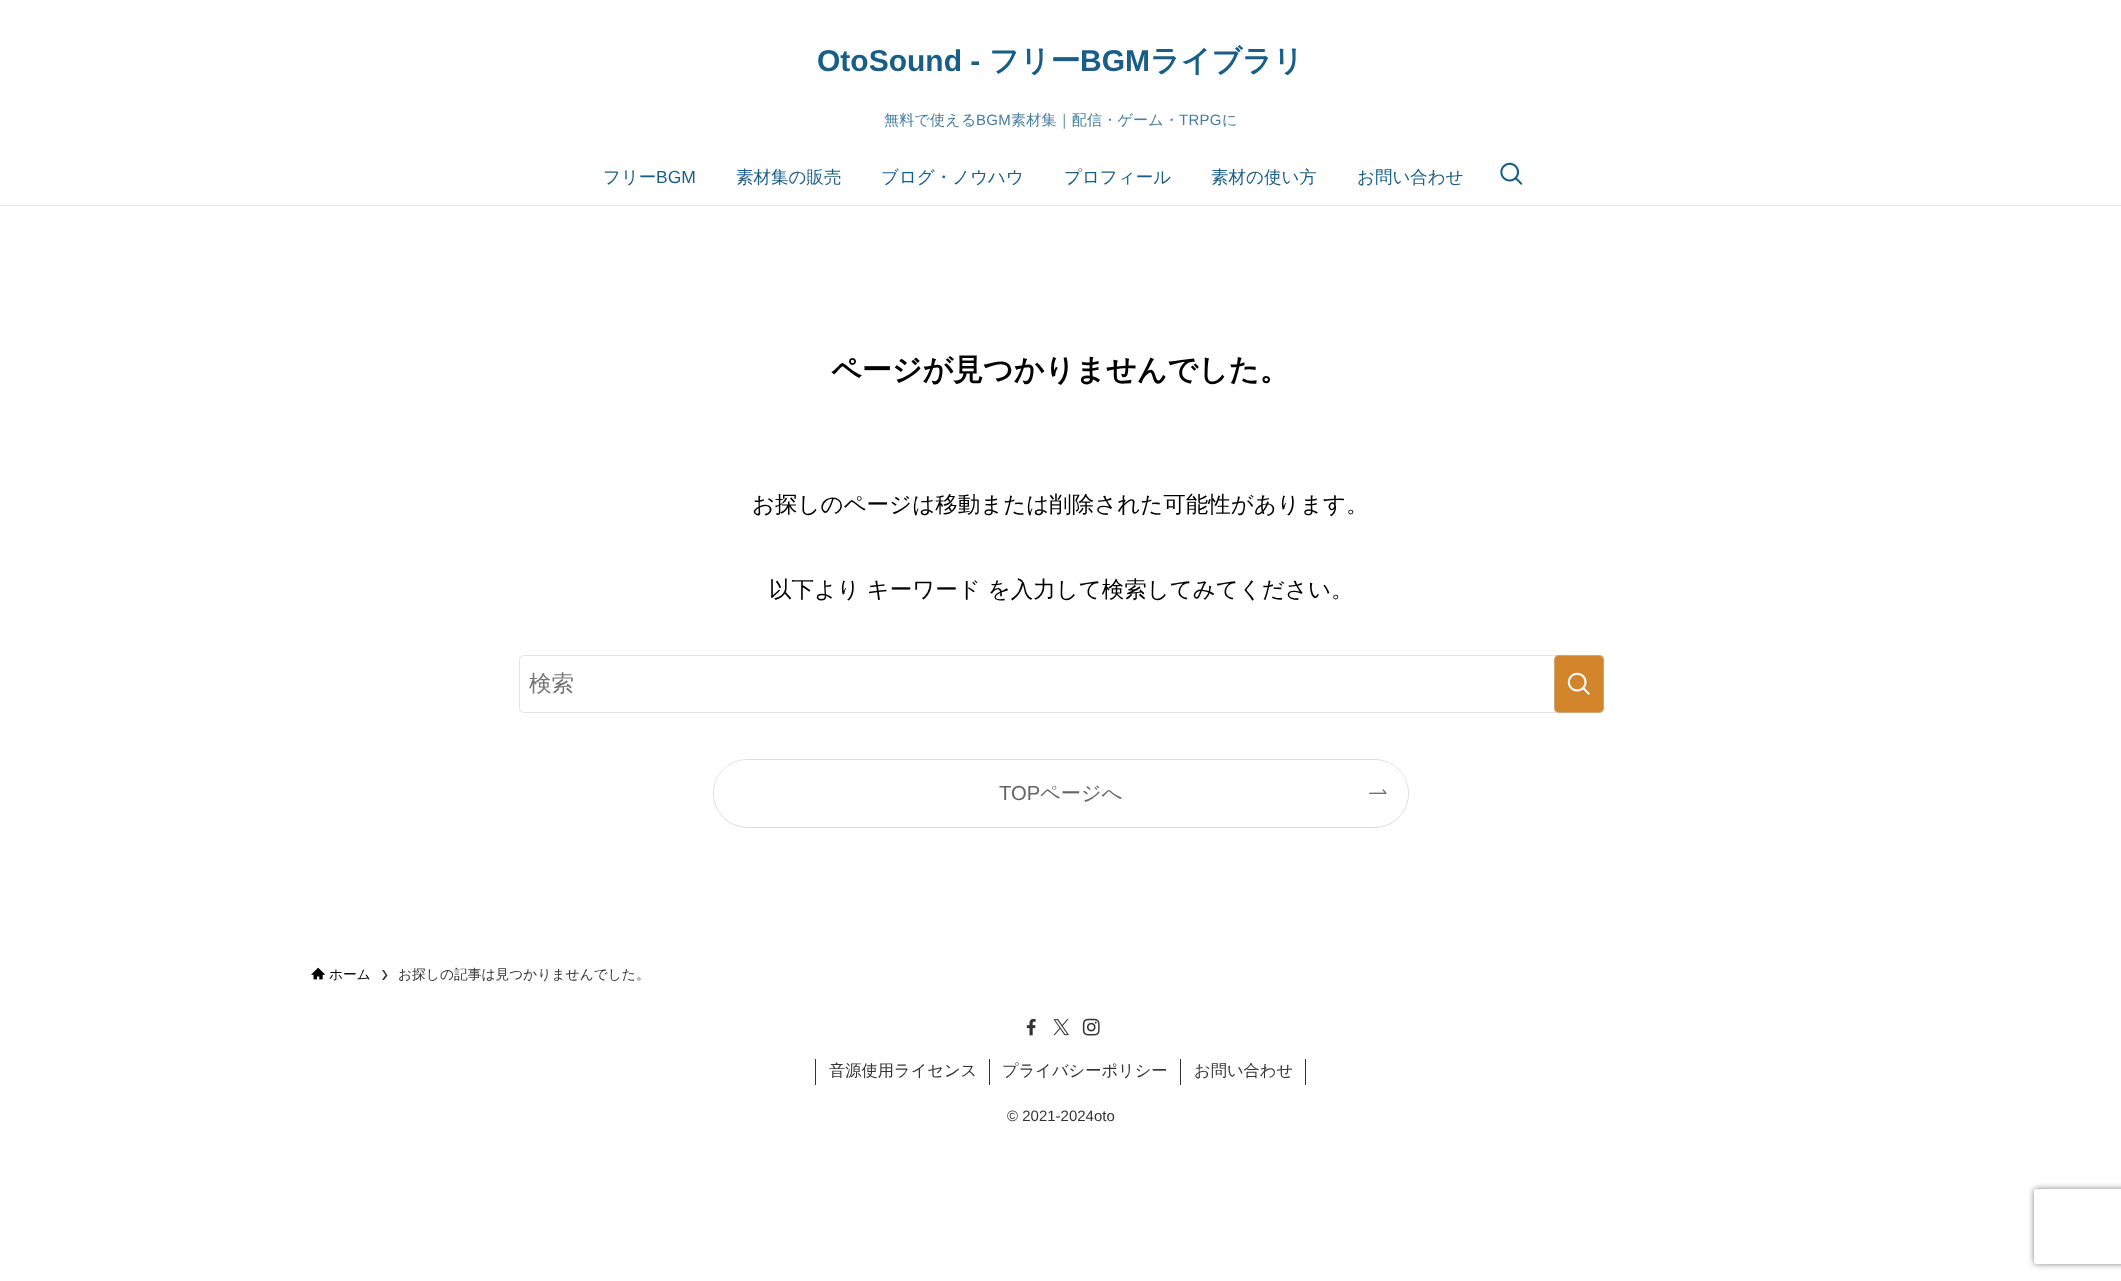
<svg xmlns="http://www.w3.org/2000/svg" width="2121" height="1281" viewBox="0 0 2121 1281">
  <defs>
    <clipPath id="clip1"><path d="M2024 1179H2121V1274H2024ZM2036.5 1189H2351.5C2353 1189 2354 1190 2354 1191.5V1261.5C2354 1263 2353 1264 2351.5 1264H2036.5C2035 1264 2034 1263 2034 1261.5V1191.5C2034 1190 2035 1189 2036.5 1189Z" clip-rule="evenodd"/></clipPath>
    <filter id="blur1" x="-50%" y="-200%" width="200%" height="500%"><feGaussianBlur stdDeviation="3"/></filter>
  </defs>
  <rect width="100%" height="100%" fill="#ffffff"/>
  <rect x="0" y="205" width="2121" height="1" fill="#e6e6e6"/>
  <text x="817" y="71" font-family="Liberation Sans" font-size="30" font-weight="bold" fill="#185e87">OtoSound -</text>
  <text x="989" y="71" font-family="WenQuanYi Zen Hei" font-size="30" font-weight="bold" fill="#185e87">フリー</text>
  <text x="1080" y="71" font-family="Liberation Sans" font-size="30" font-weight="bold" fill="#185e87">BGM</text>
  <text x="1150" y="71" font-family="WenQuanYi Zen Hei" font-size="30" font-weight="bold" fill="#185e87">ライブラリ</text>
  <text x="884" y="125" font-family="WenQuanYi Zen Hei" font-size="15" font-weight="500" letter-spacing="0.25" fill="#467e9f">無料で使える</text>
  <text x="976" y="125" font-family="Liberation Sans" font-size="15" letter-spacing="0.25" fill="#467e9f">BGM</text>
  <text x="1011" y="125" font-family="WenQuanYi Zen Hei" font-size="15" font-weight="500" letter-spacing="0.25" fill="#467e9f">素材集｜配信・ゲーム・</text>
  <text x="1179" y="125" font-family="Liberation Sans" font-size="15" letter-spacing="0.25" fill="#467e9f">TRPG</text>
  <text x="1222" y="125" font-family="WenQuanYi Zen Hei" font-size="15" font-weight="500" letter-spacing="0.25" fill="#467e9f">に</text>
  <text x="603" y="183" font-family="WenQuanYi Zen Hei" font-size="17.5" font-weight="500" fill="#185e87">フリー</text>
  <text x="656" y="183" font-family="Liberation Sans" font-size="17.5" fill="#185e87">BGM</text>
  <text x="736" y="183" font-family="WenQuanYi Zen Hei" font-size="17.5" font-weight="500" fill="#185e87">素材集の販売</text>
  <text x="881" y="183" font-family="WenQuanYi Zen Hei" font-size="17.5" font-weight="500" fill="#185e87">ブログ・ノウハウ</text>
  <text x="1064" y="183" font-family="WenQuanYi Zen Hei" font-size="17.5" font-weight="500" fill="#185e87">プロフィール</text>
  <text x="1211" y="183" font-family="WenQuanYi Zen Hei" font-size="17.5" font-weight="500" fill="#185e87">素材の使い方</text>
  <text x="1357" y="183" font-family="WenQuanYi Zen Hei" font-size="17.5" font-weight="500" fill="#185e87">お問い合わせ</text>
  <image x="1500" y="162" width="23" height="23" href="img1.png"/>
  <text x="831" y="380" font-family="WenQuanYi Zen Hei" font-size="30" font-weight="bold" fill="#000000">ページが見つかりませんでした。</text>
  <text x="752" y="512" font-family="WenQuanYi Zen Hei" font-size="22.5" font-weight="500" fill="#000000">お探しのページは移動または削除された可能性があります。</text>
  <text x="769" y="597" font-family="WenQuanYi Zen Hei" font-size="22.5" font-weight="500" fill="#000000">以下より キーワード を入力して検索してみてください。</text>
  <rect x="519.5" y="655.5" width="1084" height="57" rx="4.5" fill="none" stroke="#e3e3e3"/>
  <text x="529" y="691" font-family="WenQuanYi Zen Hei" font-size="22.5" font-weight="500" fill="#757575">検索</text>
  <rect x="1554" y="655" width="50" height="58" rx="5" fill="#d3852c"/>
  <rect x="1554.5" y="655.5" width="49" height="57" rx="4.5" fill="none" stroke="#c7c7c7" stroke-opacity="0.5"/>
  <image x="1567" y="672" width="23" height="23" href="img2.png"/>
  <rect x="713.5" y="759.5" width="695" height="68" rx="34" fill="none" stroke="#dcdcdc"/>
  <rect x="714" y="760" width="694" height="66" rx="33" fill="#ffffff"/>
  <text x="999" y="800" font-family="Liberation Sans" font-size="20.25" fill="#666666">TOP</text>
  <text x="1040" y="800" font-family="WenQuanYi Zen Hei" font-size="20.25" font-weight="500" fill="#666666">ページへ</text>
  <image x="1369" y="789" width="18" height="5" href="img3.png"/>
  <image x="311" y="967" width="14" height="13" href="img4.png"/>
  <text x="329" y="979" font-family="WenQuanYi Zen Hei" font-size="13.75" font-weight="500" fill="#000000">ホーム</text>
  <path d="M384 970H382L385.5 975L382 980H384L387.5 975.5Z" fill="#333333"/>
  <text x="398" y="979" font-family="WenQuanYi Zen Hei" font-size="13.75" font-weight="500" fill="#333333">お探しの記事は見つかりませんでした。</text>
  <image x="1026" y="1018" width="10" height="18" href="img5.png"/>
  <image x="1053" y="1019" width="16" height="17" href="img6.png"/>
  <image x="1082" y="1018" width="18" height="18" href="img7.png"/>
  <rect x="989" y="1059" width="1" height="26" fill="#333333"/>
  <rect x="815" y="1059" width="1" height="26" fill="#333333"/>
  <text x="829" y="1076" font-family="WenQuanYi Zen Hei" font-size="16.25" font-weight="500" fill="#333333">音源使用ライセンス</text>
  <rect x="1180" y="1059" width="1" height="26" fill="#333333"/>
  <text x="1002" y="1076" font-family="WenQuanYi Zen Hei" font-size="16.25" font-weight="500" fill="#333333">プライバシーポリシー</text>
  <rect x="1305" y="1059" width="1" height="26" fill="#333333"/>
  <text x="1194" y="1076" font-family="WenQuanYi Zen Hei" font-size="16.25" font-weight="500" fill="#333333">お問い合わせ</text>
  <text x="1007" y="1121" font-family="Liberation Sans" font-size="15" fill="#333333">© 2021-2024oto</text>
  <g clip-path="url(#clip1)">
    <rect x="2034" y="1189" width="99" height="75" rx="2.5" fill="#808080" filter="url(#blur1)"/>
  </g>
</svg>
